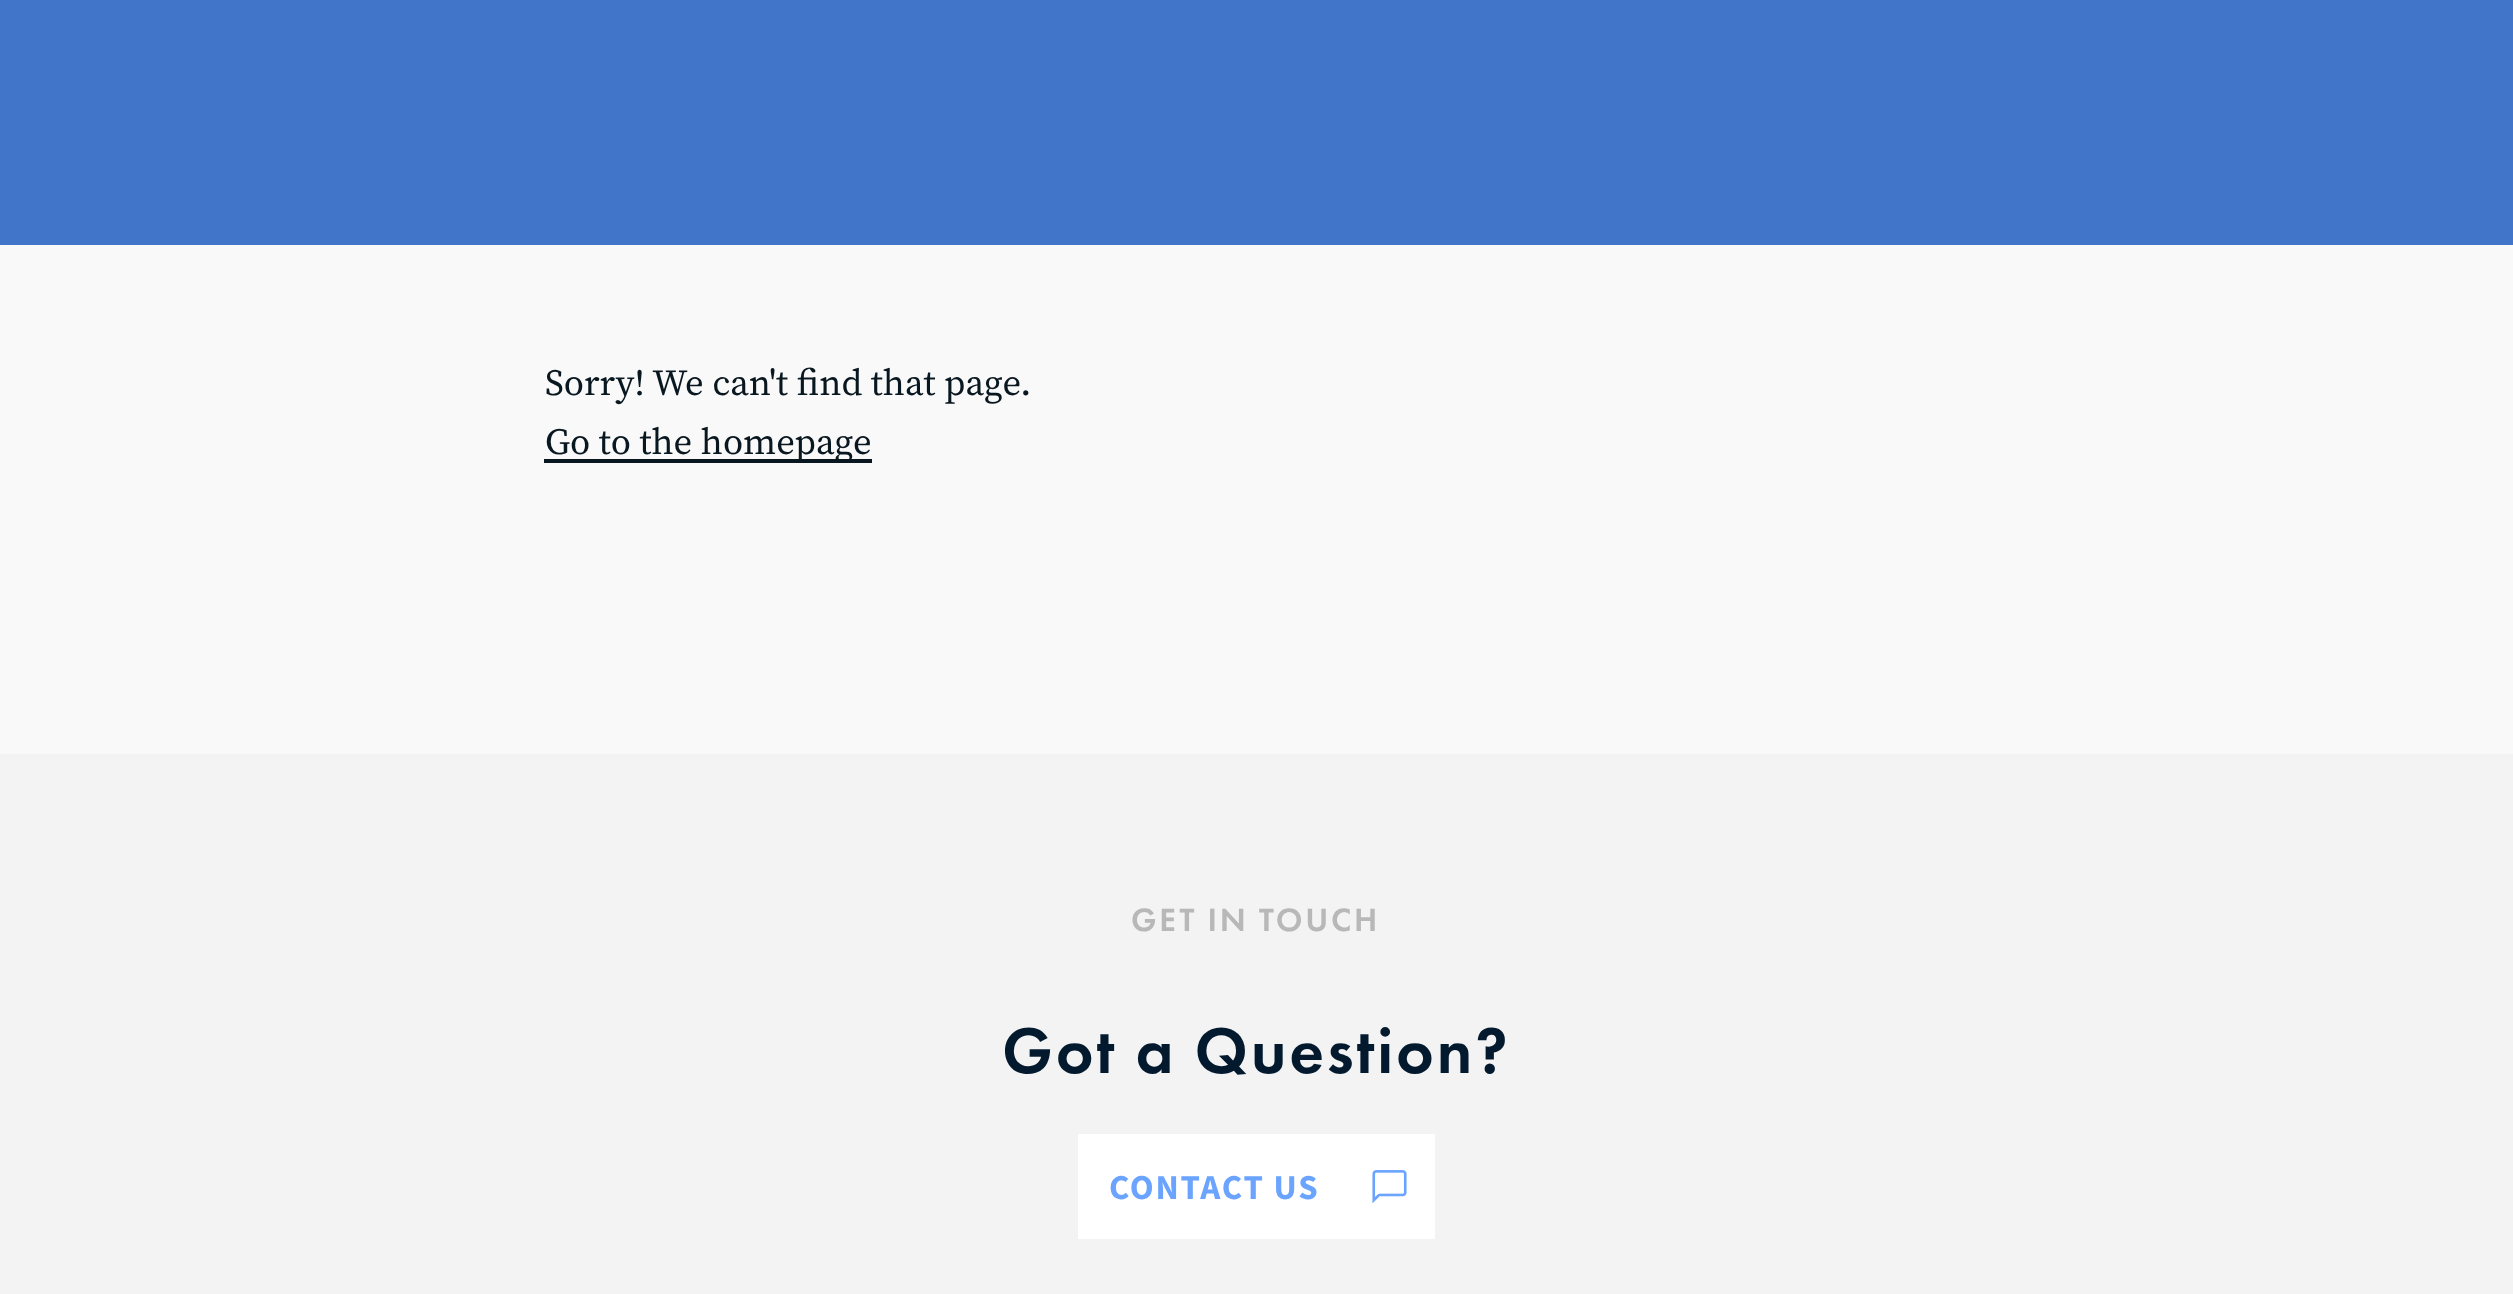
<svg xmlns="http://www.w3.org/2000/svg" width="2513" height="1294" viewBox="0 0 2513 1294">
  <rect width="100%" height="100%" fill="#f9f9f9"/>
  <rect x="0" y="0" width="2513" height="245" fill="#4175ca"/>
  <text x="545" y="395" font-family="Source Serif Pro" font-size="36.75" fill="#091720">Sorry! We can't find that page.</text>
  <rect x="544" y="459" width="328" height="4" fill="#091720"/>
  <text x="545" y="454" font-family="Source Serif Pro" font-size="36.75" fill="#091720">Go to the homepage</text>
  <rect x="0" y="754" width="2513" height="540" fill="#f3f3f3"/>
  <text x="1131" y="931" font-family="Futura PT" font-size="33.5" font-weight="500" letter-spacing="2.75" fill="#b8b8b8">GET IN TOUCH</text>
  <text x="1002" y="1073" font-family="Futura PT" font-size="66.75" font-weight="500" letter-spacing="2.75" fill="#03192e">Got a Question?</text>
  <rect x="1078" y="1134" width="357" height="105" fill="#ffffff"/>
  <text x="1109" y="1199" font-family="Source Sans Pro" font-size="35" font-weight="bold" letter-spacing="1.75" fill="#6ba4ff">CONTACT US</text>
  <image x="1372" y="1170" width="35" height="34" href="img1.png"/>
</svg>
